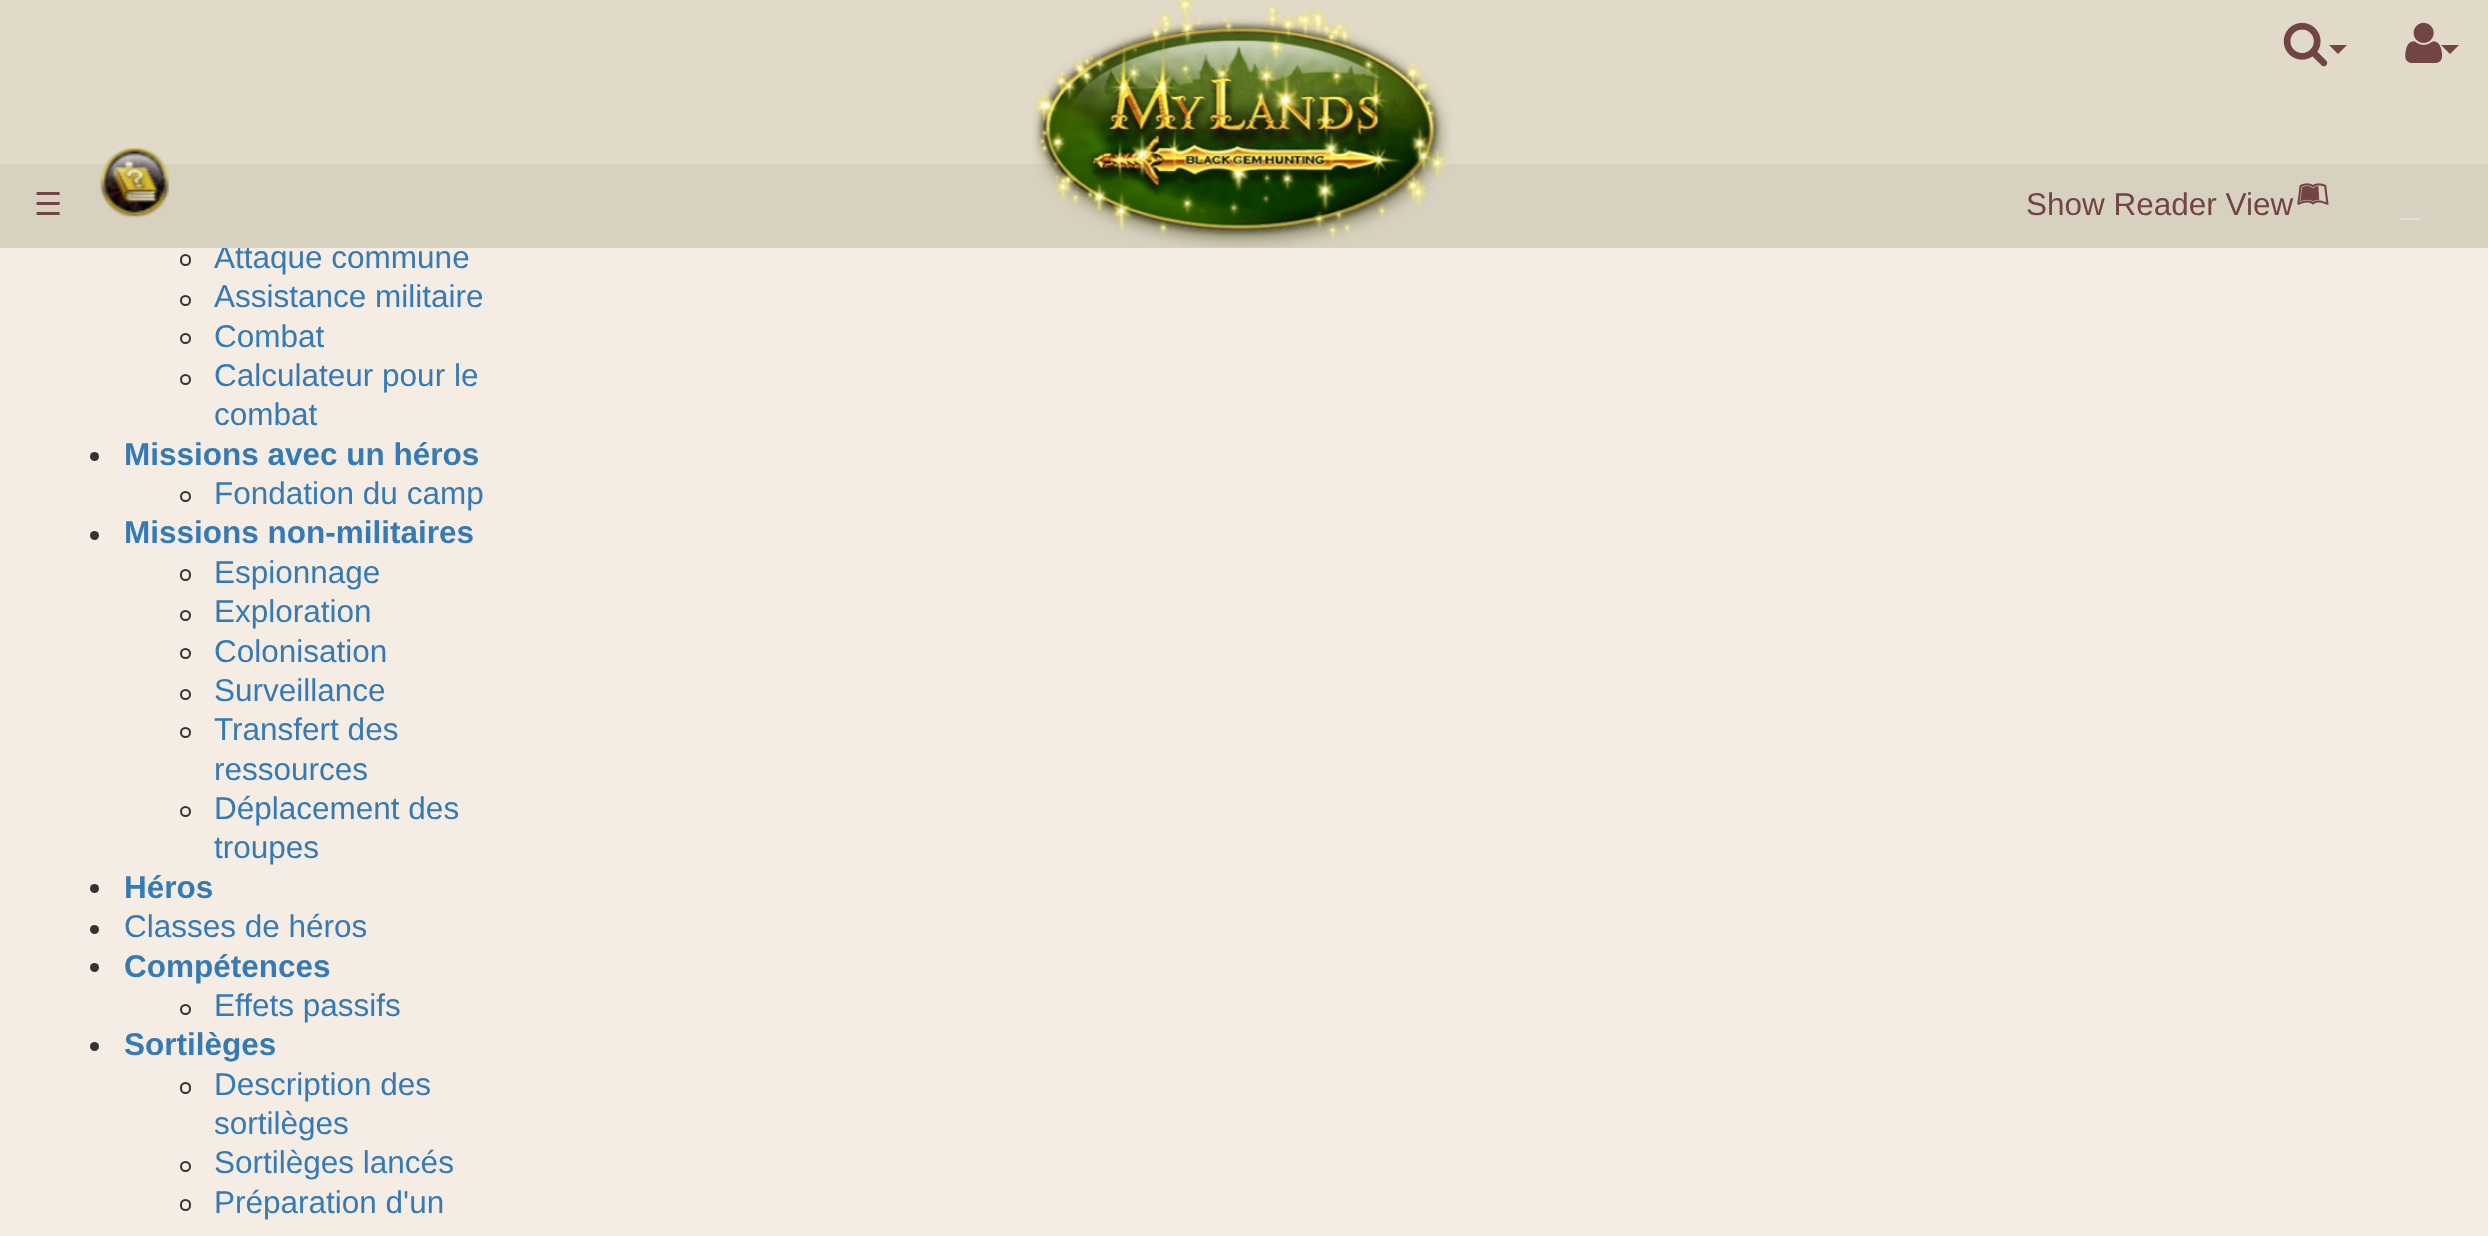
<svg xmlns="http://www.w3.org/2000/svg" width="2488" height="1236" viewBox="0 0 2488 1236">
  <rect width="100%" height="100%" fill="#f5ede4"/>
  <rect x="0" y="0" width="2488" height="164" fill="#e1dac9"/>
  <text x="214" y="268" font-family="Liberation Sans" font-size="31.5" fill="#337ab7">Attaque commune</text>
  <rect x="0" y="164" width="2488" height="84" fill="#d7d1c0"/>
  <image x="1032" y="0" width="419" height="248" href="img1.png"/>
  <image x="2283" y="22" width="45" height="45" href="img2.png"/>
  <path d="M2329 45H2347L2338 54Z" fill="#724444"/>
  <path d="M2441 45H2459L2450 54Z" fill="#724444"/>
  <image x="2405" y="22" width="37" height="41" href="img3.png"/>
  <text x="34" y="215" font-family="DejaVu Sans" font-size="31.5" fill="#724444">☰</text>
  <image x="100" y="147" width="69" height="71" href="img4.png"/>
  <text x="2026" y="215" font-family="Liberation Sans" font-size="31.5" fill="#724444">Show Reader View</text>
  <image x="2297" y="183" width="32" height="22" href="img5.png"/>
  <rect x="2401" y="218" width="20" height="2" fill="#dedede"/>
  <rect x="181" y="255" width="9" height="10" rx="4.5" fill="none" stroke="#333333" stroke-width="2"/>
  <circle cx="185.5" cy="300.5" r="4.5" fill="none" stroke="#333333" stroke-width="2"/>
  <text x="214" y="307" font-family="Liberation Sans" font-size="31.5" fill="#337ab7">Assistance militaire</text>
  <circle cx="185.5" cy="338.5" r="4.5" fill="none" stroke="#333333" stroke-width="2"/>
  <text x="214" y="347" font-family="Liberation Sans" font-size="31.5" fill="#337ab7">Combat</text>
  <circle cx="185.5" cy="379.5" r="4.5" fill="none" stroke="#333333" stroke-width="2"/>
  <text x="214" y="386" font-family="Liberation Sans" font-size="31.5" fill="#337ab7">Calculateur pour le</text>
  <text x="214" y="425" font-family="Liberation Sans" font-size="31.5" fill="#337ab7">combat</text>
  <circle cx="94.5" cy="456.5" r="4.5" fill="#333333"/>
  <text x="124" y="465" font-family="Liberation Sans" font-size="31.5" font-weight="bold" fill="#337ab7">Missions avec un héros</text>
  <circle cx="185.5" cy="496.5" r="4.5" fill="none" stroke="#333333" stroke-width="2"/>
  <text x="214" y="504" font-family="Liberation Sans" font-size="31.5" fill="#337ab7">Fondation du camp</text>
  <circle cx="94.5" cy="535.5" r="4.5" fill="#333333"/>
  <text x="124" y="543" font-family="Liberation Sans" font-size="31.5" font-weight="bold" fill="#337ab7">Missions non-militaires</text>
  <rect x="181" y="570" width="9" height="10" rx="4.5" fill="none" stroke="#333333" stroke-width="2"/>
  <text x="214" y="583" font-family="Liberation Sans" font-size="31.5" fill="#337ab7">Espionnage</text>
  <circle cx="185.5" cy="615.5" r="4.5" fill="none" stroke="#333333" stroke-width="2"/>
  <text x="214" y="622" font-family="Liberation Sans" font-size="31.5" fill="#337ab7">Exploration</text>
  <circle cx="185.5" cy="653.5" r="4.5" fill="none" stroke="#333333" stroke-width="2"/>
  <text x="214" y="662" font-family="Liberation Sans" font-size="31.5" fill="#337ab7">Colonisation</text>
  <circle cx="185.5" cy="694.5" r="4.5" fill="none" stroke="#333333" stroke-width="2"/>
  <text x="214" y="701" font-family="Liberation Sans" font-size="31.5" fill="#337ab7">Surveillance</text>
  <circle cx="185.5" cy="732.5" r="4.5" fill="none" stroke="#333333" stroke-width="2"/>
  <text x="214" y="740" font-family="Liberation Sans" font-size="31.5" fill="#337ab7">Transfert des</text>
  <text x="214" y="780" font-family="Liberation Sans" font-size="31.5" fill="#337ab7">ressources</text>
  <circle cx="185.5" cy="811.5" r="4.5" fill="none" stroke="#333333" stroke-width="2"/>
  <text x="214" y="819" font-family="Liberation Sans" font-size="31.5" fill="#337ab7">Déplacement des</text>
  <text x="214" y="858" font-family="Liberation Sans" font-size="31.5" fill="#337ab7">troupes</text>
  <circle cx="94.5" cy="888.5" r="4.5" fill="#333333"/>
  <text x="124" y="898" font-family="Liberation Sans" font-size="31.5" font-weight="bold" fill="#337ab7">Héros</text>
  <circle cx="94.5" cy="929.5" r="4.5" fill="#333333"/>
  <text x="124" y="937" font-family="Liberation Sans" font-size="31.5" fill="#337ab7">Classes de héros</text>
  <circle cx="94.5" cy="967.5" r="4.5" fill="#333333"/>
  <text x="124" y="977" font-family="Liberation Sans" font-size="31.5" font-weight="bold" fill="#337ab7">Compétences</text>
  <circle cx="185.5" cy="1009.5" r="4.5" fill="none" stroke="#333333" stroke-width="2"/>
  <text x="214" y="1016" font-family="Liberation Sans" font-size="31.5" fill="#337ab7">Effets passifs</text>
  <circle cx="94.5" cy="1046.5" r="4.5" fill="#333333"/>
  <text x="124" y="1055" font-family="Liberation Sans" font-size="31.5" font-weight="bold" fill="#337ab7">Sortilèges</text>
  <rect x="181" y="1083" width="9" height="10" rx="4.5" fill="none" stroke="#333333" stroke-width="2"/>
  <text x="214" y="1095" font-family="Liberation Sans" font-size="31.5" fill="#337ab7">Description des</text>
  <text x="214" y="1134" font-family="Liberation Sans" font-size="31.5" fill="#337ab7">sortilèges</text>
  <circle cx="185.5" cy="1166.5" r="4.5" fill="none" stroke="#333333" stroke-width="2"/>
  <text x="214" y="1173" font-family="Liberation Sans" font-size="31.5" fill="#337ab7">Sortilèges lancés</text>
  <rect x="181" y="1200" width="9" height="10" rx="4.5" fill="none" stroke="#333333" stroke-width="2"/>
  <text x="214" y="1213" font-family="Liberation Sans" font-size="31.5" fill="#337ab7">Préparation d'un</text>
</svg>
